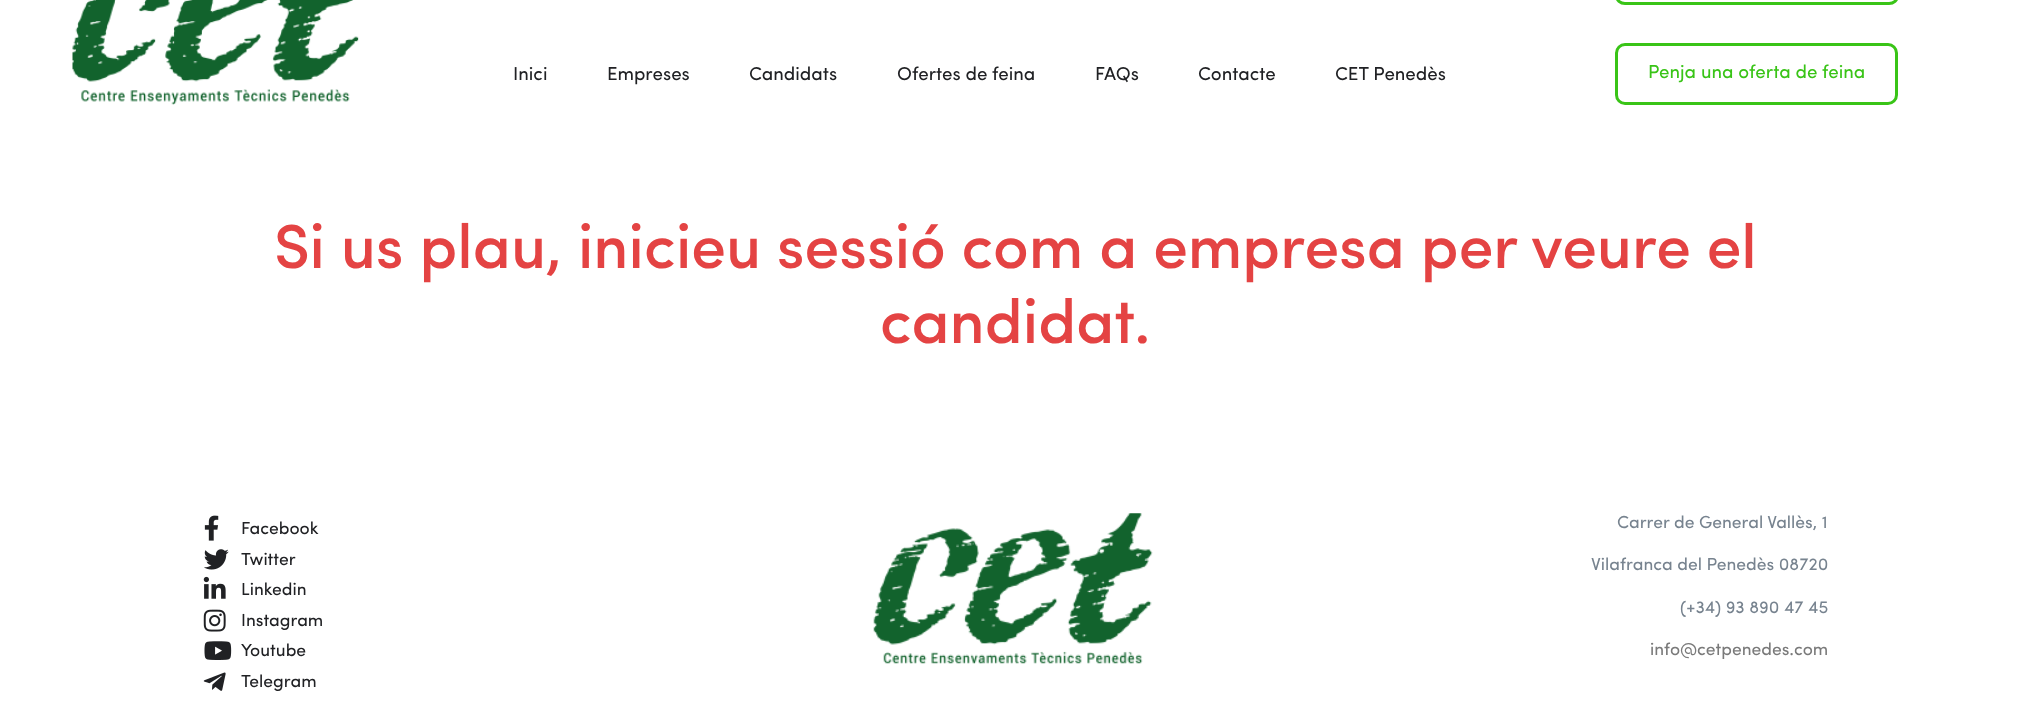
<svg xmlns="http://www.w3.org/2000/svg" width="2031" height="708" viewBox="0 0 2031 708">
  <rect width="100%" height="100%" fill="#ffffff"/>
  <image x="72" y="0" width="287" height="105" href="img1.png"/>
  <text x="513" y="80" font-family="Sofia" font-size="18.75" fill="#202124">Inici</text>
  <text x="607" y="80" font-family="Sofia" font-size="18.75" fill="#202124">Empreses</text>
  <text x="749" y="80" font-family="Sofia" font-size="18.75" fill="#202124">Candidats</text>
  <text x="897" y="80" font-family="Sofia" font-size="18.75" fill="#202124">Ofertes de feina</text>
  <text x="1095" y="80" font-family="Sofia" font-size="18.75" fill="#202124">FAQs</text>
  <text x="1198" y="80" font-family="Sofia" font-size="18.75" fill="#202124">Contacte</text>
  <text x="1335" y="80" font-family="Sofia" font-size="18.75" fill="#202124">CET Penedès</text>
  <rect x="1616.5" y="-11.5" width="281" height="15" rx="8.5" fill="none" stroke="#39c417" stroke-width="3"/>
  <rect x="1616.5" y="44.5" width="280" height="59" rx="8.5" fill="none" stroke="#39c417" stroke-width="3"/>
  <text x="1648" y="78" font-family="Sofia" font-size="18.75" fill="#39c417">Penja una oferta de feina</text>
  <text x="274" y="268" font-family="Sofia" font-size="62.5" font-weight="500" fill="#e44343">Si us plau, inicieu sessió com a empresa per veure el</text>
  <text x="880" y="343" font-family="Sofia" font-size="62.5" font-weight="500" fill="#e44343">candidat.</text>
  <image x="204" y="515" width="15" height="26" href="img2.png"/>
  <text x="241" y="534" font-family="Sofia" font-size="17.5" fill="#202124">Facebook</text>
  <image x="204" y="549" width="25" height="21" href="img3.png"/>
  <text x="241" y="565" font-family="Sofia" font-size="17.5" fill="#202124">Twitter</text>
  <image x="203" y="576" width="23" height="23" href="img4.png"/>
  <text x="241" y="595" font-family="Sofia" font-size="17.5" fill="#202124">Linkedin</text>
  <image x="203" y="609" width="23" height="23" href="img5.png"/>
  <text x="241" y="626" font-family="Sofia" font-size="17.5" fill="#202124">Instagram</text>
  <image x="204" y="641" width="28" height="19" href="img6.png"/>
  <text x="241" y="656" font-family="Sofia" font-size="17.5" fill="#202124">Youtube</text>
  <image x="203" y="672" width="23" height="19" href="img7.png"/>
  <text x="241" y="687" font-family="Sofia" font-size="17.5" fill="#202124">Telegram</text>
  <image x="873" y="513" width="280" height="151" href="img8.png"/>
  <text x="1617" y="528" font-family="Sofia" font-size="17.5" fill="#77838f">Carrer de General Vallès, 1</text>
  <text x="1591" y="570" font-family="Sofia" font-size="17.5" fill="#77838f">Vilafranca del Penedès 08720</text>
  <text x="1680" y="613" font-family="Sofia" font-size="17.5" fill="#77838f">(+34) 93 890 47 45</text>
  <text x="1650" y="655" font-family="Sofia" font-size="17.5" fill="#7a7a7a">info@cetpenedes.com</text>
</svg>
